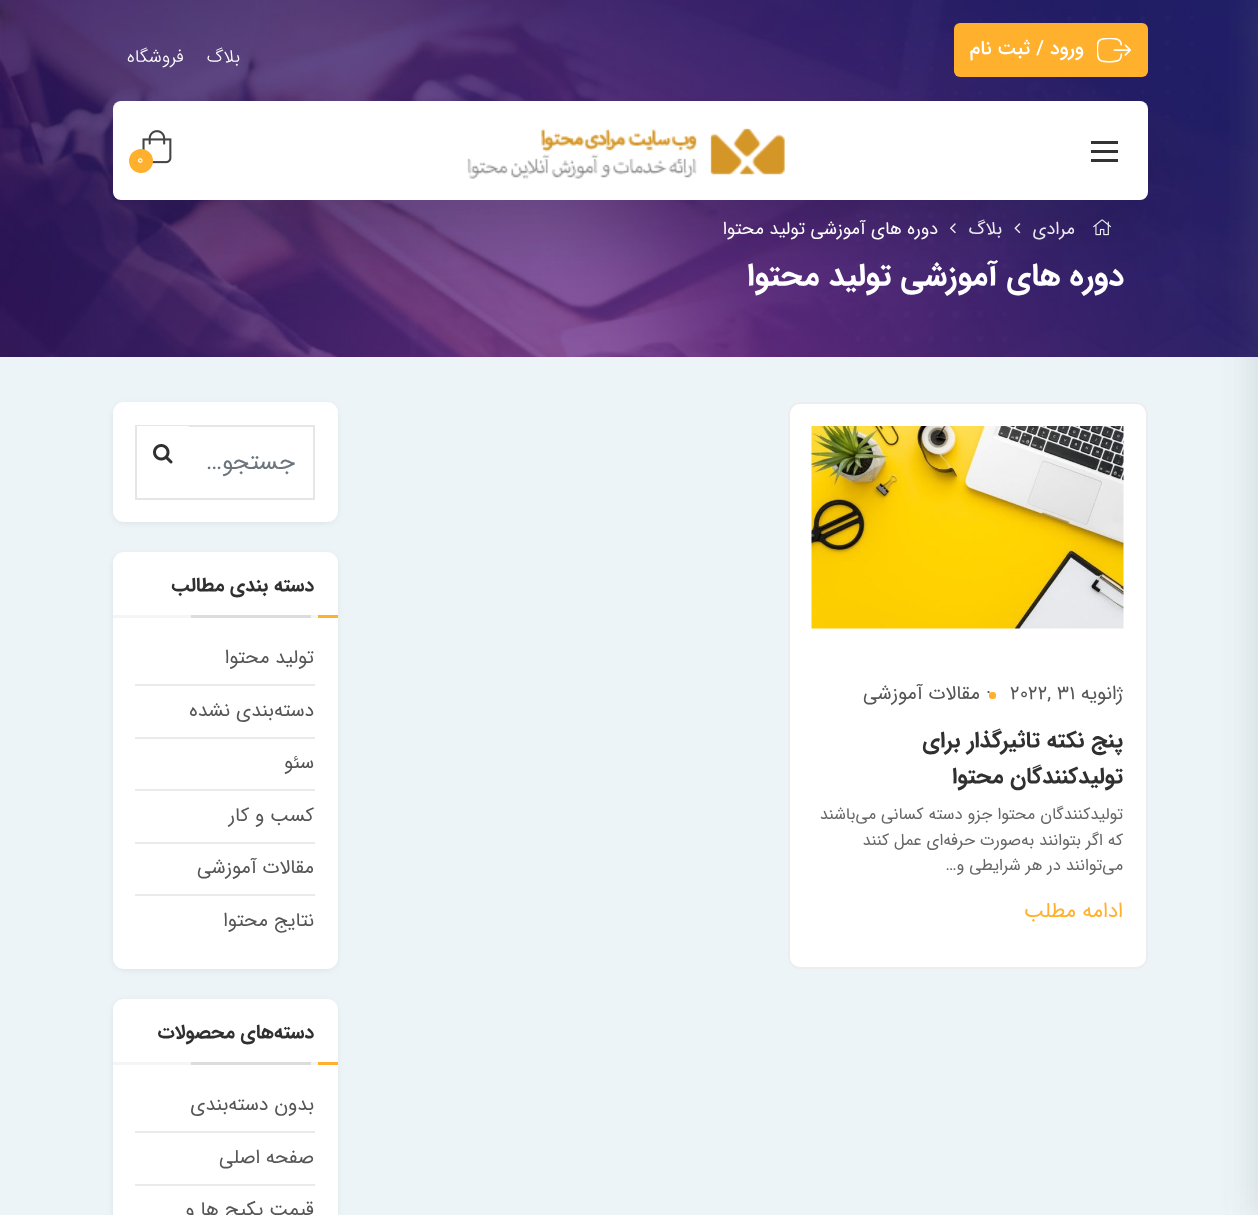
<svg xmlns="http://www.w3.org/2000/svg" width="1258" height="1215" viewBox="0 0 1258 1215">
  <defs>
    <filter id="blur1" x="-50%" y="-200%" width="200%" height="500%"><feGaussianBlur stdDeviation="15"/></filter>
    <filter id="blur2" x="-50%" y="-200%" width="200%" height="500%"><feGaussianBlur stdDeviation="26.5"/></filter>
    <filter id="blur3" x="-50%" y="-200%" width="200%" height="500%"><feGaussianBlur stdDeviation="5"/></filter>
  </defs>
  <rect width="100%" height="100%" fill="#ecf4f7"/>
  <image x="0" y="0" width="1258" height="357" href="img4.png"/>
  <rect x="1250" y="0" width="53" height="1215" fill="#73767f" fill-opacity="0.17" filter="url(#blur1)"/>
  <image x="1093" y="219" width="19" height="17" href="img5.png"/>
  <image x="1014" y="223" width="7" height="11" href="img6.png"/>
  <image x="950" y="223" width="6" height="11" href="img7.png"/>
  <rect x="113" y="137" width="1035" height="99" rx="8" fill="#000000" fill-opacity="0.1" filter="url(#blur2)"/>
  <rect x="954" y="23" width="194" height="54" rx="6" fill="#ffb02d"/>
  <image x="1097" y="38" width="34" height="25" href="img1.png"/>
  <text x="1084" y="54" font-family="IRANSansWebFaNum" font-size="19.5" font-weight="500" direction="rtl" fill="#ffffff">ورود / ثبت نام</text>
  <text x="240" y="62" font-family="IRANSansWebFaNum" font-size="18" font-weight="300" direction="rtl" fill="#ffffff">بلاگ</text>
  <text x="184" y="62" font-family="IRANSansWebFaNum" font-size="18" font-weight="300" direction="rtl" fill="#ffffff">فروشگاه</text>
  <rect x="113" y="101" width="1035" height="99" rx="8" fill="#ffffff"/>
  <rect x="1091" y="150" width="27" height="3" fill="#333333"/>
  <rect x="1091" y="141" width="27" height="3" fill="#333333"/>
  <rect x="1091" y="159" width="27" height="3" fill="#333333"/>
  <image x="467" y="128" width="318" height="51" href="img2.png"/>
  <image x="142" y="130" width="30" height="34" href="img3.png"/>
  <circle cx="141" cy="161" r="12" fill="#ffb02d"/>
  <text x="137" y="164" font-family="IRANSansWebFaNum" font-size="15" fill="#ffffff">0</text>
  <text x="1075" y="234" font-family="IRANSansWebFaNum" font-size="18" direction="rtl" fill="#ebe9f0">مرادی</text>
  <text x="1002" y="234" font-family="IRANSansWebFaNum" font-size="18" direction="rtl" fill="#ebe9f0">بلاگ</text>
  <text x="938" y="234" font-family="IRANSansWebFaNum" font-size="18" direction="rtl" fill="#ffffff">دوره های آموزشی تولید محتوا</text>
  <text x="1124" y="285" font-family="IRANSansWebFaNum" font-size="31.5" font-weight="bold" direction="rtl" fill="#ffffff">دوره های آموزشی تولید محتوا</text>
  <rect x="788" y="402" width="360" height="567" rx="12" fill="#ffffff"/>
  <rect x="789" y="403" width="358" height="565" rx="11" fill="none" stroke="#000000" stroke-opacity="0.07" stroke-width="2"/>
  <image x="811" y="426" width="313" height="203" href="img8.png"/>
  <text x="1123" y="699" font-family="IRANSansWebFaNum" font-size="19.5" direction="rtl" fill="#555555">ژانویه</text>
  <text x="1010" y="699" font-family="IRANSansWebFaNum" font-size="19.5" fill="#555555">2022, 31</text>
  <text x="986" y="699" font-family="IRANSansWebFaNum" font-size="19.5" fill="#555555">·</text>
  <rect x="989" y="692" width="7" height="7" rx="3" fill="#ffb02d"/>
  <text x="980" y="699" font-family="IRANSansWebFaNum" font-size="19.5" direction="rtl" fill="#555555">مقالات آموزشی</text>
  <text x="1123" y="747" font-family="IRANSansWebFaNum" font-size="22.5" font-weight="bold" direction="rtl" fill="#303030">پنج نکته تاثیرگذار برای</text>
  <text x="1123" y="783" font-family="IRANSansWebFaNum" font-size="22.5" font-weight="bold" direction="rtl" fill="#303030">تولیدکنندگان محتوا</text>
  <text x="1123" y="819" font-family="IRANSansWebFaNum" font-size="16.5" direction="rtl" fill="#666666">تولیدکنندگان محتوا جزو دسته کسانی می‌باشند</text>
  <text x="1123" y="845" font-family="IRANSansWebFaNum" font-size="16.5" direction="rtl" fill="#666666">که اگر بتوانند به‌صورت حرفه‌ای عمل کنند</text>
  <text x="1123" y="870" font-family="IRANSansWebFaNum" font-size="16.5" direction="rtl" fill="#666666">می‌توانند در هر شرایطی و…</text>
  <text x="1123" y="917" font-family="IRANSansWebFaNum" font-size="21" direction="rtl" fill="#ffb02d">ادامه مطلب</text>
  <rect x="117" y="408" width="216" height="111" rx="6" fill="#000000" fill-opacity="0.2" filter="url(#blur3)"/>
  <rect x="113" y="402" width="225" height="120" rx="11" fill="#ffffff"/>
  <rect x="136" y="426" width="178" height="73" fill="none" stroke="#e6e6e6" stroke-width="2"/>
  <text x="295" y="469" font-family="IRANSansWebFaNum" font-size="24" direction="rtl" fill="#6c757d">جستجو…</text>
  <rect x="137" y="426" width="52" height="1" fill="#ffffff"/>
  <image x="153" y="444" width="20" height="20" href="img9.png"/>
  <rect x="117" y="558" width="216" height="408" rx="6" fill="#000000" fill-opacity="0.2" filter="url(#blur3)"/>
  <rect x="113" y="552" width="225" height="417" rx="11" fill="#ffffff"/>
  <rect x="113" y="615" width="205" height="3" fill="#f5f5f5"/>
  <text x="314" y="591" font-family="IRANSansWebFaNum" font-size="19.5" font-weight="bold" direction="rtl" fill="#303030">دسته بندی مطالب</text>
  <rect x="318" y="615" width="20" height="3" fill="#ffb02d"/>
  <rect x="191" y="615" width="120" height="3" fill="#dcdcdc"/>
  <rect x="135" y="684" width="180" height="2" fill="#eaeaea"/>
  <text x="314" y="663" font-family="IRANSansWebFaNum" font-size="19.5" direction="rtl" fill="#555555">تولید محتوا</text>
  <rect x="135" y="737" width="180" height="2" fill="#eaeaea"/>
  <text x="314" y="716" font-family="IRANSansWebFaNum" font-size="19.5" direction="rtl" fill="#555555">دسته‌بندی نشده</text>
  <rect x="135" y="789" width="180" height="2" fill="#eaeaea"/>
  <text x="314" y="768" font-family="IRANSansWebFaNum" font-size="19.5" direction="rtl" fill="#555555">سئو</text>
  <rect x="135" y="842" width="180" height="2" fill="#eaeaea"/>
  <text x="314" y="821" font-family="IRANSansWebFaNum" font-size="19.5" direction="rtl" fill="#555555">کسب و کار</text>
  <rect x="135" y="894" width="180" height="2" fill="#eaeaea"/>
  <text x="314" y="873" font-family="IRANSansWebFaNum" font-size="19.5" direction="rtl" fill="#555555">مقالات آموزشی</text>
  <text x="314" y="926" font-family="IRANSansWebFaNum" font-size="19.5" direction="rtl" fill="#555555">نتایج محتوا</text>
  <rect x="117" y="1005" width="216" height="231" rx="6" fill="#000000" fill-opacity="0.2" filter="url(#blur3)"/>
  <rect x="113" y="999" width="225" height="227" rx="11" fill="#ffffff"/>
  <rect x="113" y="1062" width="205" height="3" fill="#f5f5f5"/>
  <text x="314" y="1038" font-family="IRANSansWebFaNum" font-size="19.5" font-weight="bold" direction="rtl" fill="#303030">دسته‌های محصولات</text>
  <rect x="318" y="1062" width="20" height="3" fill="#ffb02d"/>
  <rect x="191" y="1062" width="120" height="3" fill="#dcdcdc"/>
  <rect x="135" y="1131" width="180" height="2" fill="#eaeaea"/>
  <text x="314" y="1110" font-family="IRANSansWebFaNum" font-size="19.5" direction="rtl" fill="#555555">بدون دسته‌بندی</text>
  <rect x="135" y="1184" width="180" height="2" fill="#eaeaea"/>
  <text x="314" y="1163" font-family="IRANSansWebFaNum" font-size="19.5" direction="rtl" fill="#555555">صفحه اصلی</text>
  <text x="314" y="1215" font-family="IRANSansWebFaNum" font-size="19.5" direction="rtl" fill="#555555">قیمت پکیج ها و</text>
</svg>
